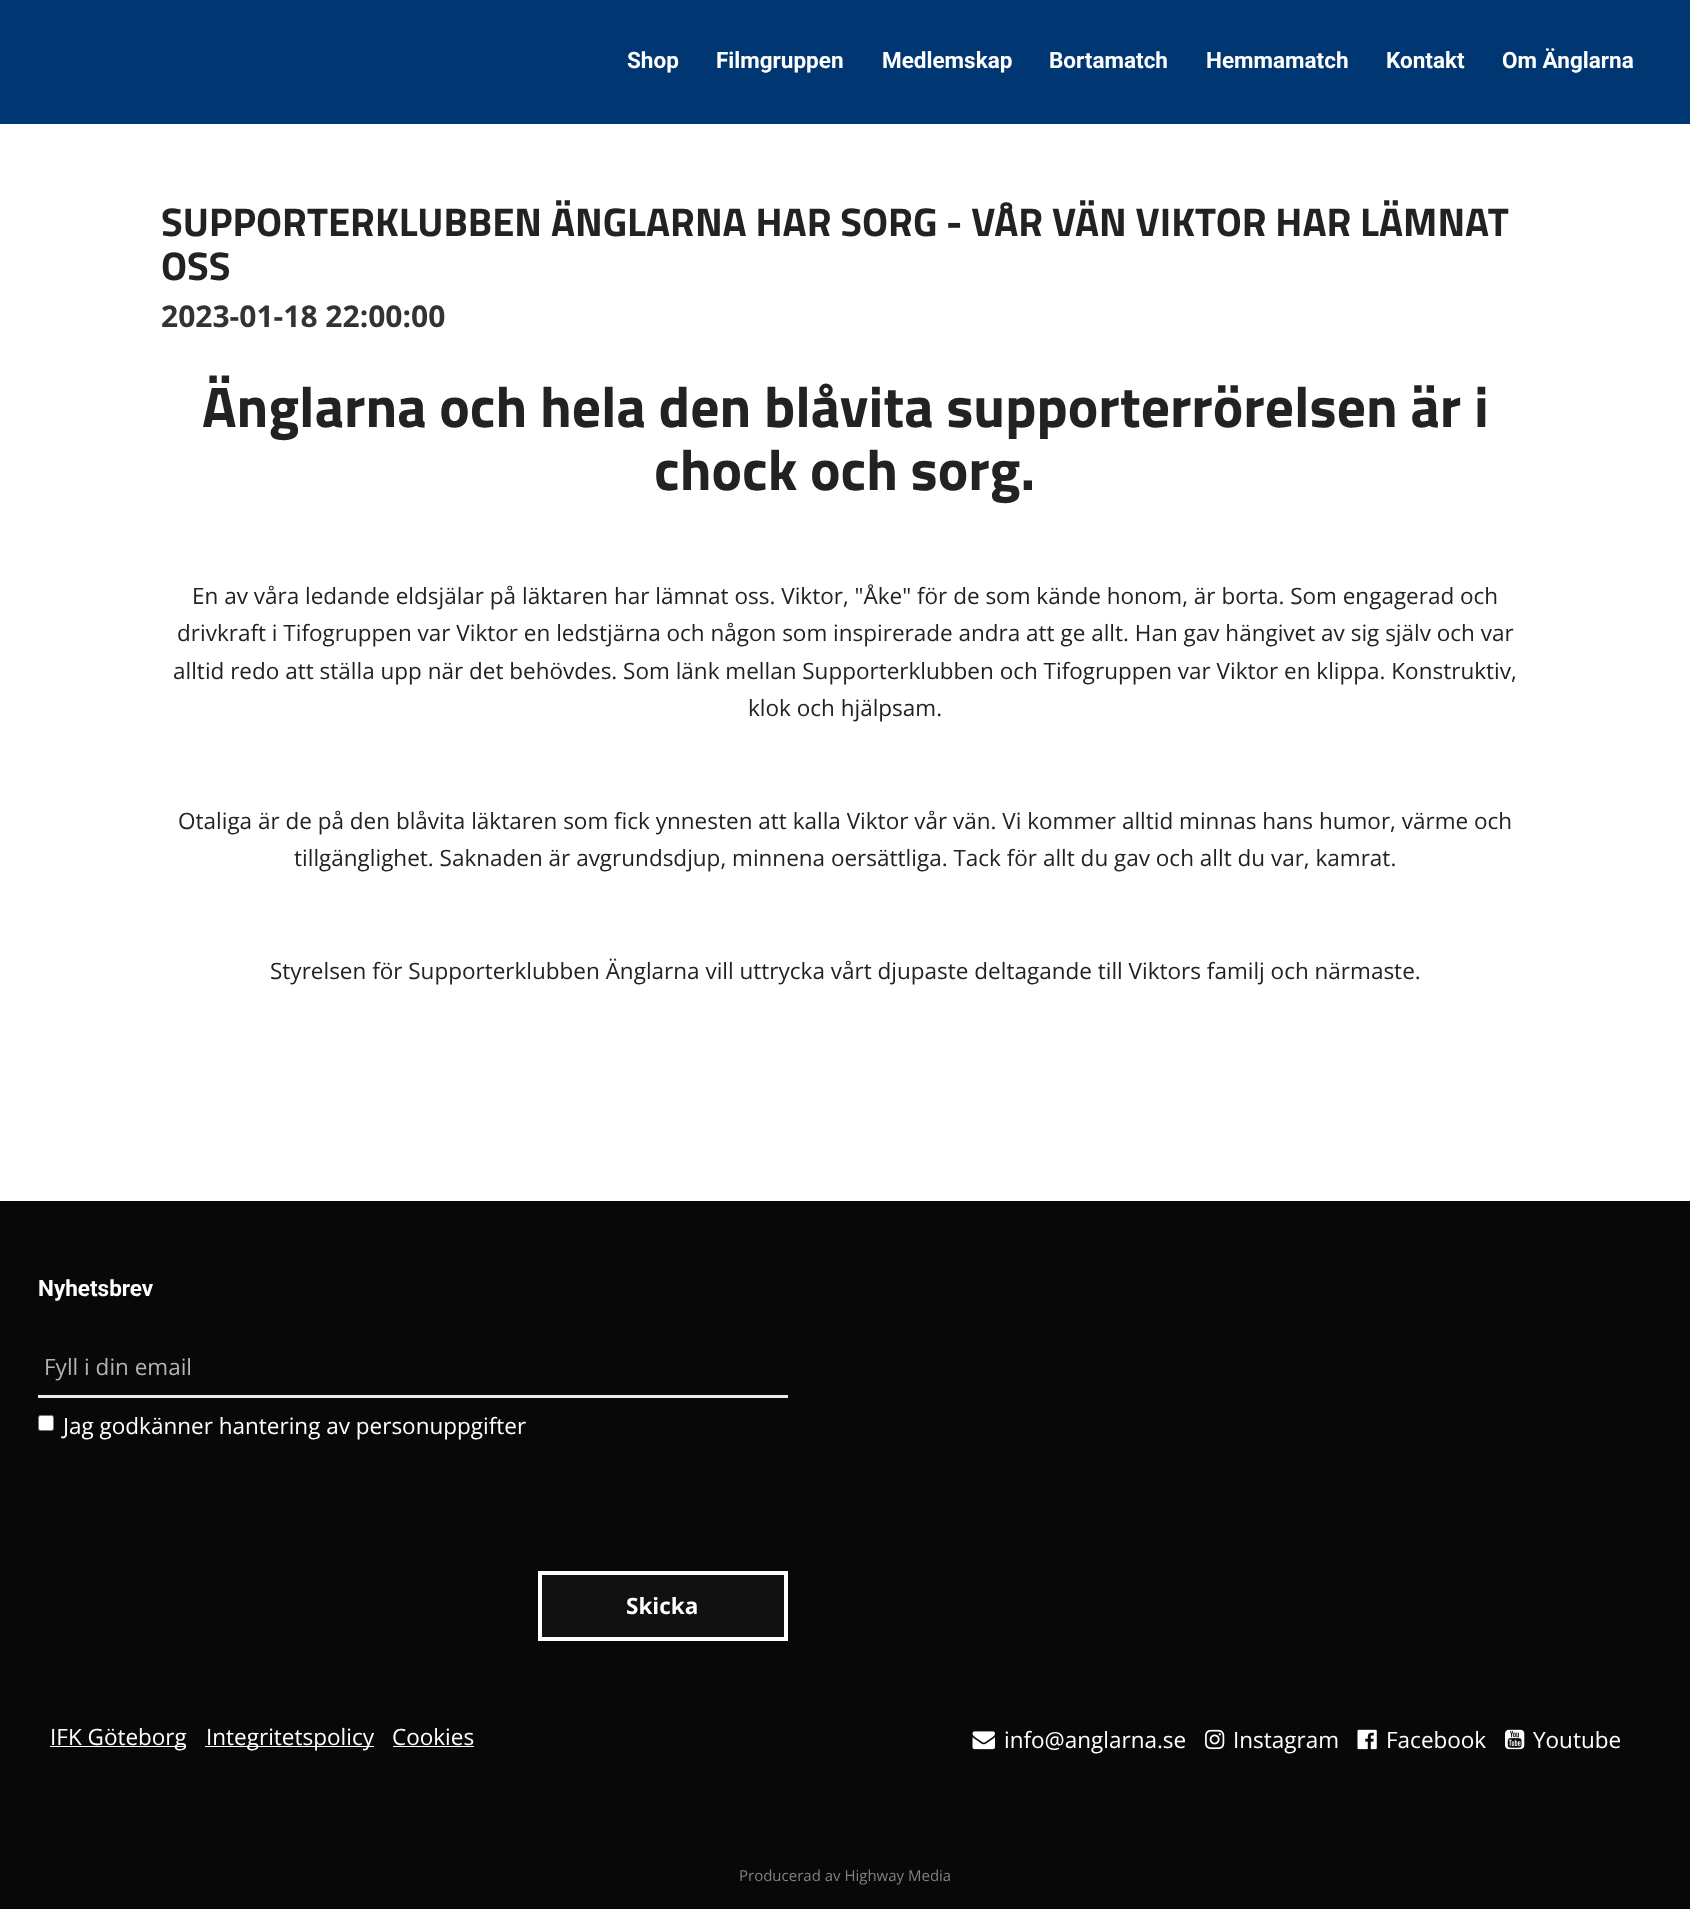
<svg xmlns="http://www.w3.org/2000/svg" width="1690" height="1912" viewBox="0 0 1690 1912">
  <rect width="100%" height="100%" fill="#ffffff"/>
  <rect x="0" y="0" width="1690" height="124" fill="#003773"/>
  <text x="627" y="68" font-family="Roboto" font-size="22.5" font-weight="bold" fill="#ffffff">Shop</text>
  <text x="716" y="68" font-family="Roboto" font-size="22.5" font-weight="bold" fill="#ffffff">Filmgruppen</text>
  <text x="882" y="68" font-family="Roboto" font-size="22.5" font-weight="bold" fill="#ffffff">Medlemskap</text>
  <text x="1049" y="68" font-family="Roboto" font-size="22.5" font-weight="bold" fill="#ffffff">Bortamatch</text>
  <text x="1206" y="68" font-family="Roboto" font-size="22.5" font-weight="bold" fill="#ffffff">Hemmamatch</text>
  <text x="1386" y="68" font-family="Roboto" font-size="22.5" font-weight="bold" fill="#ffffff">Kontakt</text>
  <text x="1502" y="68" font-family="Roboto" font-size="22.5" font-weight="bold" fill="#ffffff">Om Änglarna</text>
  <text x="161" y="236" font-family="Titillium Web" font-size="40" font-weight="bold" fill="#222222">SUPPORTERKLUBBEN ÄNGLARNA HAR SORG - VÅR VÄN VIKTOR HAR LÄMNAT</text>
  <text x="161" y="280" font-family="Titillium Web" font-size="40" font-weight="bold" fill="#222222">OSS</text>
  <text x="161" y="327" font-family="Open Sans" font-size="30" font-weight="bold" fill="#333333">2023-01-18 22:00:00</text>
  <text x="202" y="427" font-family="Titillium Web" font-size="57.5" font-weight="bold" fill="#222222">Änglarna och hela den blåvita supporterrörelsen är i</text>
  <text x="654" y="490" font-family="Titillium Web" font-size="57.5" font-weight="bold" fill="#222222">chock och sorg.</text>
  <text x="192" y="604" font-family="Open Sans" font-size="22.5" fill="#222222">En av våra ledande eldsjälar på läktaren har lämnat oss. Viktor, "Åke" för de som kände honom, är borta. Som engagerad och</text>
  <text x="177" y="641" font-family="Open Sans" font-size="22.5" fill="#222222">drivkraft i Tifogruppen var Viktor en ledstjärna och någon som inspirerade andra att ge allt. Han gav hängivet av sig själv och var</text>
  <text x="173" y="679" font-family="Open Sans" font-size="22.5" fill="#222222">alltid redo att ställa upp när det behövdes. Som länk mellan Supporterklubben och Tifogruppen var Viktor en klippa. Konstruktiv,</text>
  <text x="748" y="716" font-family="Open Sans" font-size="22.5" fill="#222222">klok och hjälpsam.</text>
  <text x="178" y="829" font-family="Open Sans" font-size="22.5" fill="#222222">Otaliga är de på den blåvita läktaren som fick ynnesten att kalla Viktor vår vän. Vi kommer alltid minnas hans humor, värme och</text>
  <text x="294" y="866" font-family="Open Sans" font-size="22.5" fill="#222222">tillgänglighet. Saknaden är avgrundsdjup, minnena oersättliga. Tack för allt du gav och allt du var, kamrat.</text>
  <text x="270" y="979" font-family="Open Sans" font-size="22.5" fill="#222222">Styrelsen för Supporterklubben Änglarna vill uttrycka vårt djupaste deltagande till Viktors familj och närmaste.</text>
  <rect x="0" y="1201" width="1690" height="708" fill="#080808"/>
  <text x="38" y="1296" font-family="Roboto" font-size="22.5" font-weight="bold" fill="#ffffff">Nyhetsbrev</text>
  <rect x="38" y="1395" width="750" height="3" fill="#ececec"/>
  <text x="44" y="1375" font-family="Open Sans" font-size="22.5" fill="#b3b3b3">Fyll i din email</text>
  <rect x="38.5" y="1415.5" width="15" height="15" rx="2" fill="#ffffff" stroke="#767676"/>
  <text x="63" y="1434" font-family="Open Sans" font-size="22.5" fill="#ffffff">Jag godkänner hantering av personuppgifter</text>
  <rect x="540" y="1573" width="246" height="66" fill="#111111" stroke="#ffffff" stroke-width="4"/>
  <text x="626" y="1614" font-family="Open Sans" font-size="22.5" font-weight="bold" fill="#ffffff">Skicka</text>
  <rect x="50" y="1746" width="136" height="1" fill="#ffffff"/>
  <text x="50" y="1745" font-family="Open Sans" font-size="22.5" fill="#ffffff">IFK Göteborg</text>
  <rect x="205" y="1746" width="169" height="1" fill="#ffffff"/>
  <text x="206" y="1745" font-family="Open Sans" font-size="22.5" fill="#ffffff">Integritetspolicy</text>
  <text x="392" y="1745" font-family="Open Sans" font-size="22.5" fill="#ffffff">Cookies</text>
  <rect x="393" y="1746" width="81" height="1" fill="#ffffff"/>
  <image x="972" y="1731" width="23" height="19" href="img1.png"/>
  <text x="1004" y="1748" font-family="Open Sans" font-size="22.5" fill="#ffffff">info@anglarna.se</text>
  <image x="1205" y="1729" width="20" height="21" href="img2.png"/>
  <text x="1233" y="1748" font-family="Open Sans" font-size="22.5" fill="#ffffff">Instagram</text>
  <image x="1357" y="1729" width="20" height="21" href="img3.png"/>
  <text x="1386" y="1748" font-family="Open Sans" font-size="22.5" fill="#ffffff">Facebook</text>
  <image x="1505" y="1729" width="20" height="21" href="img4.png"/>
  <text x="1533" y="1748" font-family="Open Sans" font-size="22.5" fill="#ffffff">Youtube</text>
  <text x="739" y="1881" font-family="Open Sans" font-size="15" fill="#818181">Producerad av Highway Media</text>
</svg>
